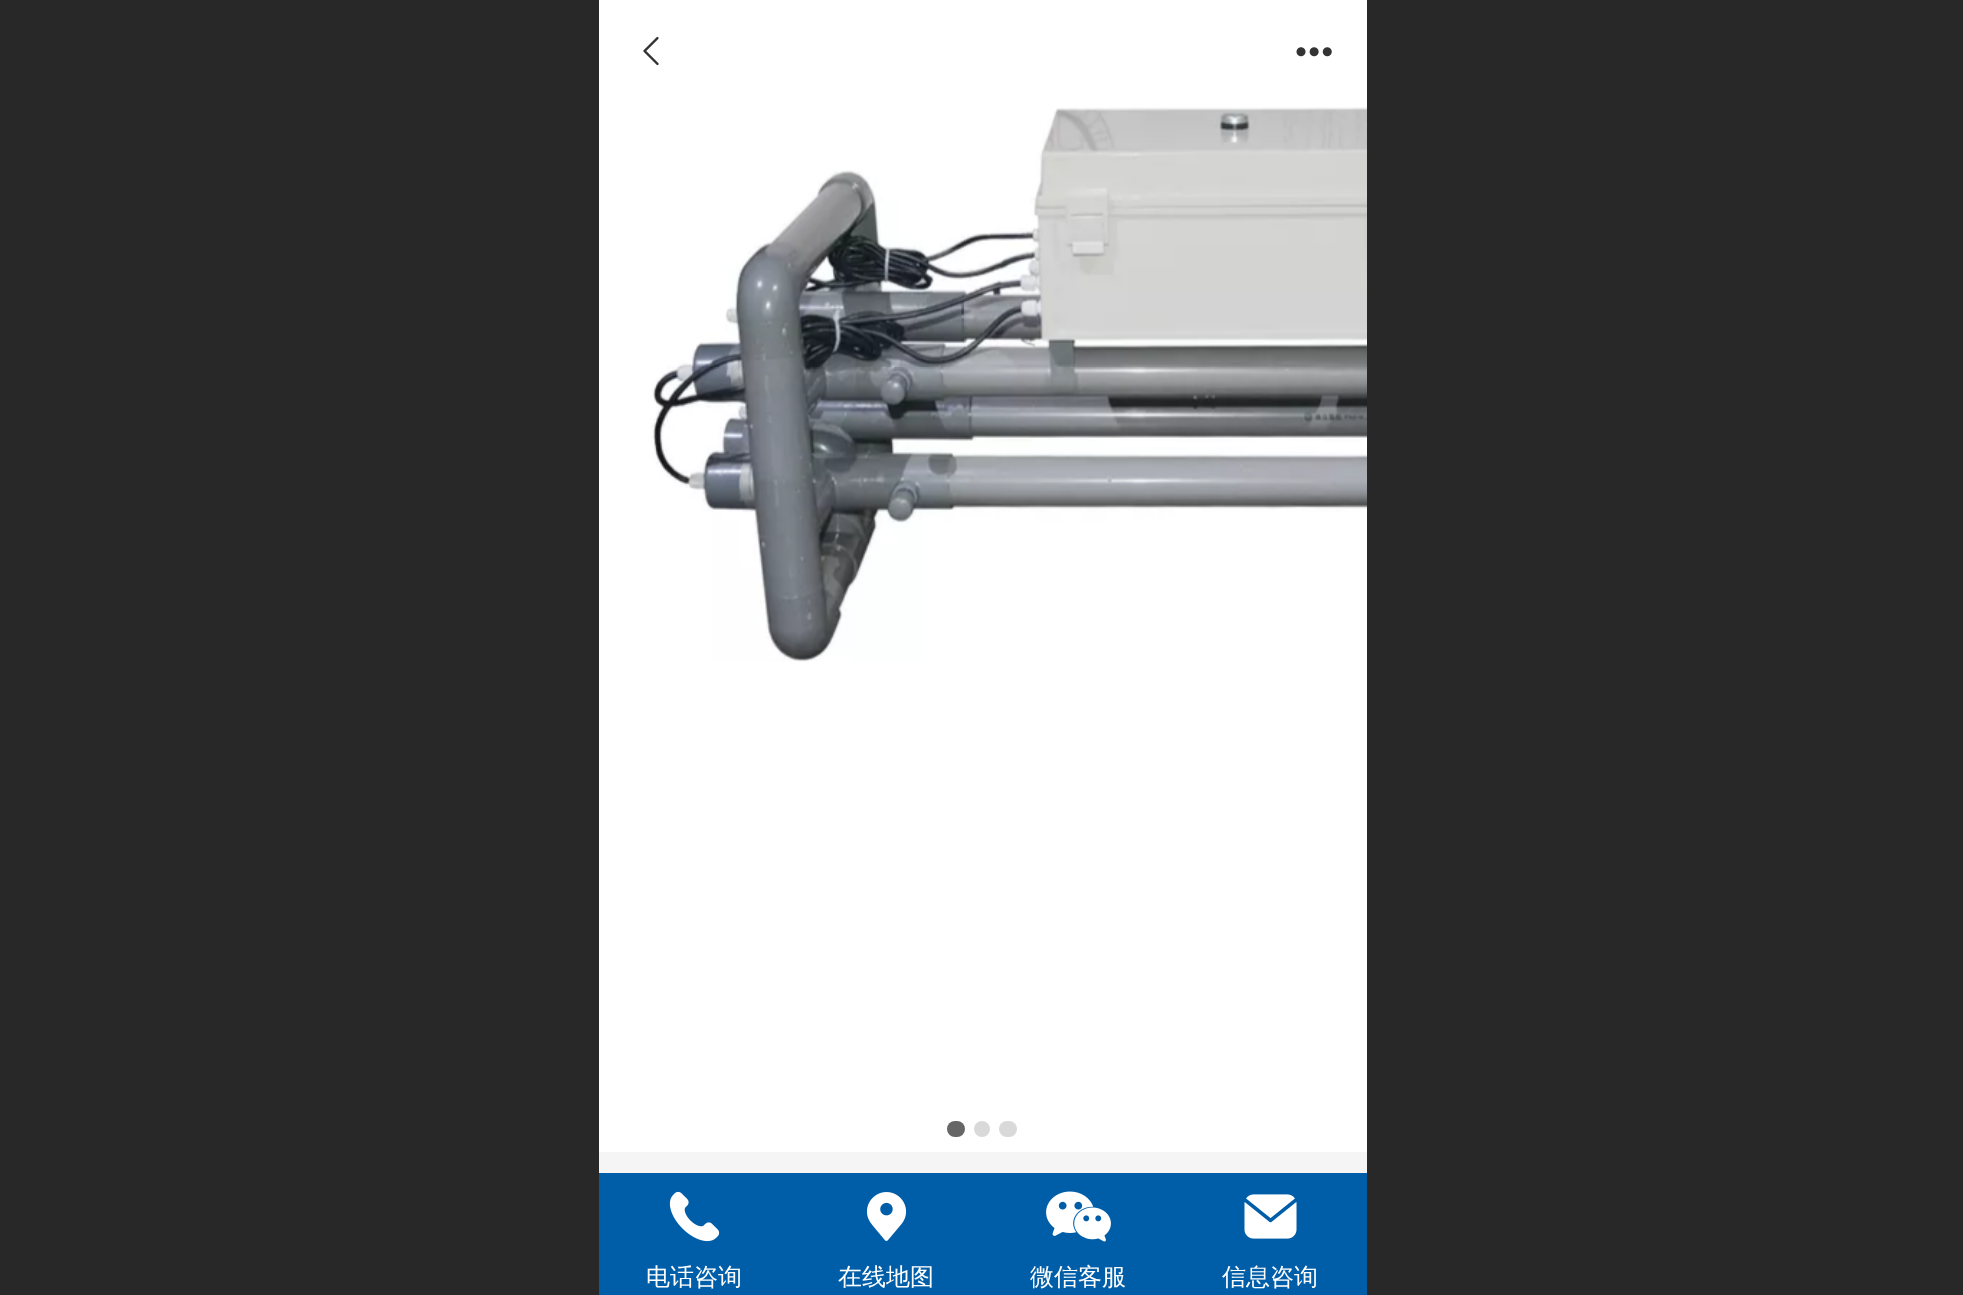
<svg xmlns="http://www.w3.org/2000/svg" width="1963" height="1295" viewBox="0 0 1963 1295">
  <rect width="100%" height="100%" fill="#f5f5f5"/>
  <rect x="0" y="0" width="599" height="1295" fill="#282828"/>
  <rect x="599" y="0" width="768" height="1152" fill="#ffffff"/>
  <image x="651" y="107" width="716" height="555" href="img1.png"/>
  <rect x="947" y="1121" width="18" height="16" rx="8" fill="#666666"/>
  <circle cx="982" cy="1129" r="8" fill="#d9d9d9"/>
  <rect x="999" y="1121" width="18" height="16" rx="8" fill="#d9d9d9"/>
  <image x="643" y="36" width="16" height="30" href="img2.png"/>
  <image x="1296" y="47" width="36" height="10" href="img3.png"/>
  <rect x="599" y="1173" width="768" height="122" fill="#005ea8"/>
  <image x="669" y="1191" width="51" height="51" href="img4.png"/>
  <text x="646" y="1285" font-family="WenQuanYi Zen Hei" font-size="24" font-weight="500" fill="#ffffff">电话咨询</text>
  <image x="866" y="1192" width="41" height="49" href="img5.png"/>
  <text x="838" y="1285" font-family="WenQuanYi Zen Hei" font-size="24" font-weight="500" fill="#ffffff">在线地图</text>
  <image x="1046" y="1191" width="65" height="51" href="img6.png"/>
  <text x="1030" y="1285" font-family="WenQuanYi Zen Hei" font-size="24" font-weight="500" fill="#ffffff">微信客服</text>
  <image x="1244" y="1194" width="53" height="45" href="img7.png"/>
  <text x="1222" y="1285" font-family="WenQuanYi Zen Hei" font-size="24" font-weight="500" fill="#ffffff">信息咨询</text>
  <rect x="1367" y="0" width="596" height="1295" fill="#282828"/>
</svg>
